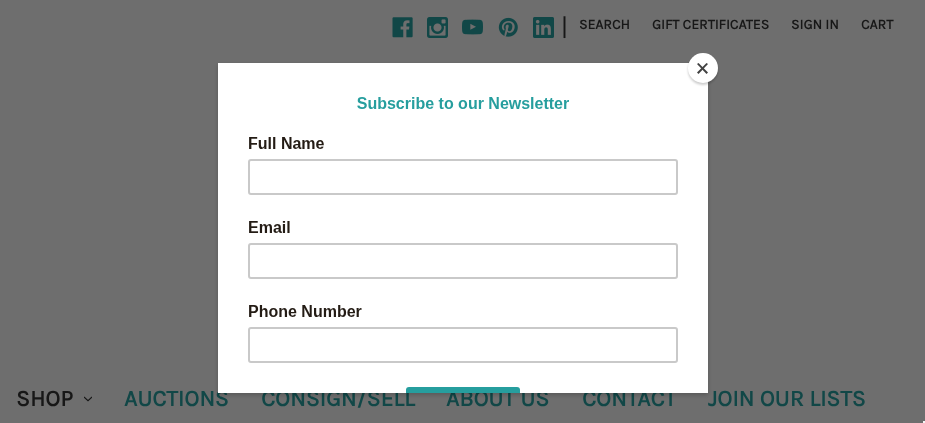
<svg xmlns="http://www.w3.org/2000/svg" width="925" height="423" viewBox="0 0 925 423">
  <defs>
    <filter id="blur1" x="-50%" y="-200%" width="200%" height="500%"><feGaussianBlur stdDeviation="2"/></filter>
    <filter id="blur2" x="-50%" y="-200%" width="200%" height="500%"><feGaussianBlur stdDeviation="1"/></filter>
  </defs>
  <rect width="100%" height="100%" fill="#6e6e6e"/>
  <image x="392" y="17" width="21" height="21" href="img1.png"/>
  <image x="427" y="17" width="21" height="21" href="img2.png"/>
  <image x="462" y="19" width="21" height="16" href="img3.png"/>
  <image x="498" y="17" width="20" height="20" href="img4.png"/>
  <image x="533" y="17" width="21" height="21" href="img5.png"/>
  <text x="561" y="35" font-family="Karla" font-size="25" fill="#171717">|</text>
  <text x="579" y="29" font-family="Karla" font-size="14" font-weight="bold" fill="#171717">SEARCH</text>
  <text x="652" y="29" font-family="Karla" font-size="14" font-weight="bold" fill="#171717">GIFT CERTIFICATES</text>
  <text x="791" y="29" font-family="Karla" font-size="14" font-weight="bold" fill="#171717">SIGN IN</text>
  <text x="861" y="29" font-family="Karla" font-size="14" font-weight="bold" fill="#171717">CART</text>
  <text x="16" y="406" font-family="Karla" font-size="23" font-weight="bold" fill="#171717">SHOP</text>
  <image x="84" y="396" width="8" height="6" href="img6.png"/>
  <text x="124" y="406" font-family="Karla" font-size="23" font-weight="bold" fill="#114747">AUCTIONS</text>
  <text x="261" y="406" font-family="Karla" font-size="23" font-weight="bold" fill="#114747">CONSIGN/SELL</text>
  <text x="446" y="406" font-family="Karla" font-size="23" font-weight="bold" fill="#114747">ABOUT US</text>
  <text x="582" y="406" font-family="Karla" font-size="23" font-weight="bold" fill="#114747">CONTACT</text>
  <text x="708" y="406" font-family="Karla" font-size="23" font-weight="bold" fill="#114747">JOIN OUR LISTS</text>
  <rect x="218" y="65" width="490" height="330" fill="#000000" fill-opacity="0.2" filter="url(#blur1)"/>
  <image x="218" y="63" width="490" height="330" href="img7.png"/>
  <rect x="688" y="55" width="30" height="30" rx="15" fill="#000000" fill-opacity="0.2" filter="url(#blur2)"/>
  <circle cx="703" cy="68" r="15" fill="#ffffff"/>
  <path d="M706.5 63L708 64L698.5 74L697 72.5Z" fill="#414141"/>
  <path d="M697 64L698.5 63L708 72.5L706.5 74Z" fill="#414141"/>
  <rect x="923" y="421" width="2" height="2" fill="#f5f5f5"/>
</svg>
